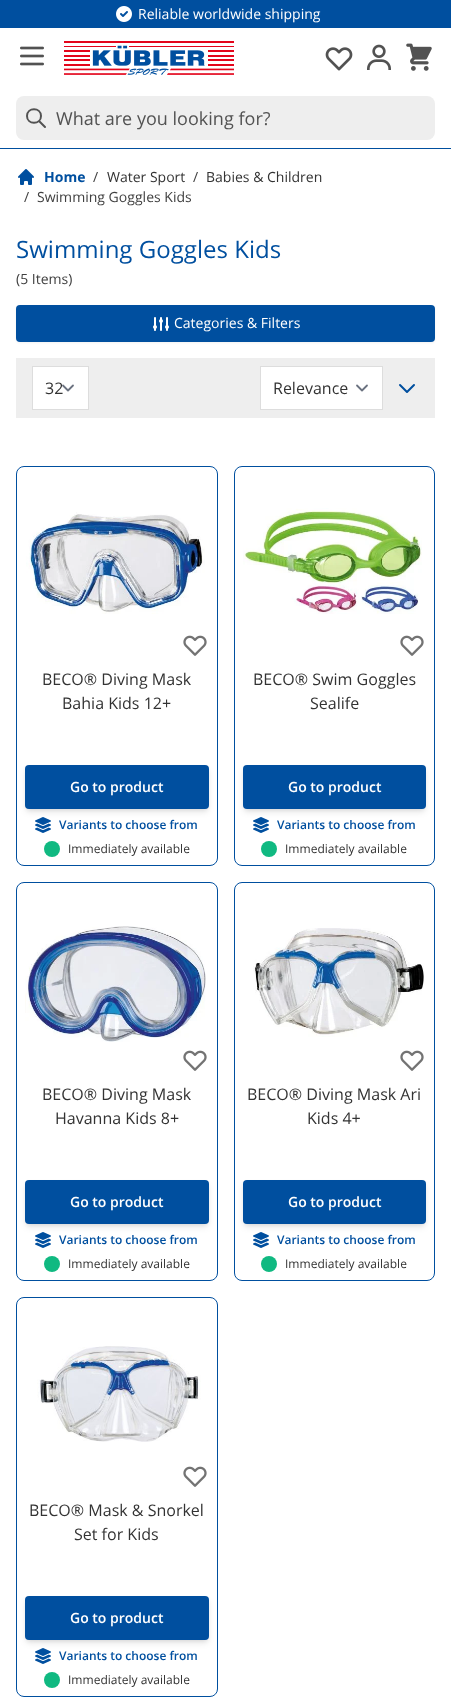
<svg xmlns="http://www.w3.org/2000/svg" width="466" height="1707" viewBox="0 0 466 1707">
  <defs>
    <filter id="blur1" x="-50%" y="-200%" width="200%" height="500%"><feGaussianBlur stdDeviation="1"/></filter>
    <filter id="blur2" x="-50%" y="-200%" width="200%" height="500%"><feGaussianBlur stdDeviation="2"/></filter>
    <filter id="blur3" x="-50%" y="-200%" width="200%" height="500%"><feGaussianBlur stdDeviation="3"/></filter>
  </defs>
  <rect width="100%" height="100%" fill="#ffffff"/>
  <rect x="0" y="0" width="451" height="28" fill="#004f9f"/>
  <image x="116" y="6" width="16" height="16" href="img1.png"/>
  <text x="138" y="19" font-family="Open Sans" font-size="14" fill="#ffffff">Reliable worldwide shipping</text>
  <image x="20" y="46" width="24" height="20" href="img2.png"/>
  <image x="64" y="41" width="170" height="34" href="img3.png"/>
  <image x="325" y="47" width="28" height="24" href="img4.png"/>
  <image x="367" y="44" width="24" height="26" href="img5.png"/>
  <image x="406" y="43" width="26" height="28" href="img6.png"/>
  <rect x="0" y="148" width="451" height="1" fill="#004f9f"/>
  <rect x="16" y="96" width="419" height="44" rx="8" fill="#eeeeee"/>
  <path d="M45 127L39 121M41 116C41 125 27 125 27 116C27 107 41 107 41 116Z" fill="none" stroke="#525252" stroke-width="2" stroke-linecap="round" stroke-linejoin="round"/>
  <text x="56" y="125" font-family="Open Sans" font-size="18" fill="#525252">What are you looking for?</text>
  <image x="18" y="169" width="16" height="16" href="img7.png"/>
  <text x="44" y="182" font-family="Open Sans" font-size="14" font-weight="bold" fill="#004f9f">Home</text>
  <text x="93" y="182" font-family="Open Sans" font-size="14" fill="#404040">/</text>
  <text x="107" y="182" font-family="Open Sans" font-size="14" fill="#333333">Water Sport</text>
  <text x="193" y="182" font-family="Open Sans" font-size="14" fill="#404040">/</text>
  <text x="206" y="182" font-family="Open Sans" font-size="14" fill="#333333">Babies &amp; Children</text>
  <text x="24" y="202" font-family="Open Sans" font-size="14" fill="#404040">/</text>
  <text x="37" y="202" font-family="Open Sans" font-size="14" fill="#404040">Swimming Goggles Kids</text>
  <text x="16" y="258" font-family="Open Sans" font-size="24" fill="#004f9f">Swimming Goggles Kids</text>
  <text x="16" y="284" font-family="Open Sans" font-size="14" fill="#404040">(5 Items)</text>
  <rect x="16" y="306" width="419" height="37" rx="4" fill="#000000" fill-opacity="0.05" filter="url(#blur1)"/>
  <rect x="16" y="305" width="419" height="37" rx="4" fill="#004f9f"/>
  <image x="153" y="317" width="16" height="14" href="img8.png"/>
  <text x="174" y="328" font-family="Open Sans" font-size="14" fill="#ffffff">Categories &amp; Filters</text>
  <rect x="16" y="358" width="419" height="60" fill="#eeeeee"/>
  <rect x="33" y="367" width="55" height="42" fill="#ffffff"/>
  <path d="M63 385.5L68 390.5L73 385.5" fill="none" stroke="#6b7280" stroke-width="1.8" stroke-linecap="round" stroke-linejoin="round"/>
  <rect x="32.5" y="366.5" width="56" height="43" fill="none" stroke="#dddddd"/>
  <text x="45" y="394" font-family="Open Sans" font-size="16" fill="#333333">32</text>
  <rect x="261" y="367" width="121" height="42" fill="#ffffff"/>
  <path d="M357 385.5L362 390.5L367 385.5" fill="none" stroke="#6b7280" stroke-width="1.8" stroke-linecap="round" stroke-linejoin="round"/>
  <rect x="260.5" y="366.5" width="122" height="43" fill="none" stroke="#dddddd"/>
  <text x="273" y="394" font-family="Open Sans" font-size="16" fill="#333333">Relevance</text>
  <path d="M414 385L407 392L400 385" fill="none" stroke="#004f9f" stroke-width="2" stroke-linecap="round" stroke-linejoin="round"/>
  <rect x="16.5" y="466.5" width="201" height="399" rx="7.5" fill="none" stroke="#004f9f"/>
  <image x="26" y="512" width="179" height="102" href="img9.png"/>
  <image x="183" y="635" width="24" height="21" href="img10.png"/>
  <text x="42" y="685" font-family="Open Sans" font-size="16" fill="#333333">BECO® Diving Mask</text>
  <text x="62" y="709" font-family="Open Sans" font-size="16" fill="#333333">Bahia Kids 12+</text>
  <rect x="27" y="769" width="180" height="40" rx="2" fill="#000000" fill-opacity="0.1" filter="url(#blur2)"/>
  <rect x="26" y="770" width="182" height="42" rx="3" fill="#000000" fill-opacity="0.1" filter="url(#blur3)"/>
  <rect x="25" y="765" width="184" height="44" rx="4" fill="#004f9f"/>
  <text x="70" y="792" font-family="Open Sans" font-size="14" font-weight="600" fill="#ffffff">Go to product</text>
  <image x="35" y="817" width="16" height="16" href="img11.png"/>
  <text x="59" y="829" font-family="Open Sans" font-size="12" font-weight="600" fill="#004f9f">Variants to choose from</text>
  <circle cx="52" cy="849" r="8" fill="#10b981"/>
  <text x="68" y="853" font-family="Open Sans" font-size="12" fill="#333333">Immediately available</text>
  <rect x="234.5" y="466.5" width="200" height="399" rx="7.5" fill="none" stroke="#004f9f"/>
  <image x="243" y="508" width="179" height="106" href="img12.png"/>
  <image x="400" y="635" width="24" height="21" href="img10.png"/>
  <text x="253" y="685" font-family="Open Sans" font-size="16" fill="#333333">BECO® Swim Goggles</text>
  <text x="310" y="709" font-family="Open Sans" font-size="16" fill="#333333">Sealife</text>
  <rect x="245" y="769" width="179" height="40" rx="2" fill="#000000" fill-opacity="0.1" filter="url(#blur2)"/>
  <rect x="244" y="770" width="181" height="42" rx="3" fill="#000000" fill-opacity="0.1" filter="url(#blur3)"/>
  <rect x="243" y="765" width="183" height="44" rx="4" fill="#004f9f"/>
  <text x="288" y="792" font-family="Open Sans" font-size="14" font-weight="600" fill="#ffffff">Go to product</text>
  <image x="253" y="817" width="16" height="16" href="img11.png"/>
  <text x="277" y="829" font-family="Open Sans" font-size="12" font-weight="600" fill="#004f9f">Variants to choose from</text>
  <circle cx="269" cy="849" r="8" fill="#10b981"/>
  <text x="285" y="853" font-family="Open Sans" font-size="12" fill="#333333">Immediately available</text>
  <rect x="16.5" y="882.5" width="201" height="398" rx="7.5" fill="none" stroke="#004f9f"/>
  <image x="25" y="926" width="181" height="116" href="img13.png"/>
  <image x="183" y="1050" width="24" height="21" href="img10.png"/>
  <text x="42" y="1100" font-family="Open Sans" font-size="16" fill="#333333">BECO® Diving Mask</text>
  <text x="55" y="1124" font-family="Open Sans" font-size="16" fill="#333333">Havanna Kids 8+</text>
  <rect x="27" y="1184" width="180" height="40" rx="2" fill="#000000" fill-opacity="0.1" filter="url(#blur2)"/>
  <rect x="26" y="1185" width="182" height="42" rx="3" fill="#000000" fill-opacity="0.1" filter="url(#blur3)"/>
  <rect x="25" y="1180" width="184" height="44" rx="4" fill="#004f9f"/>
  <text x="70" y="1207" font-family="Open Sans" font-size="14" font-weight="600" fill="#ffffff">Go to product</text>
  <image x="35" y="1232" width="16" height="16" href="img11.png"/>
  <text x="59" y="1244" font-family="Open Sans" font-size="12" font-weight="600" fill="#004f9f">Variants to choose from</text>
  <circle cx="52" cy="1264" r="8" fill="#10b981"/>
  <text x="68" y="1268" font-family="Open Sans" font-size="12" fill="#333333">Immediately available</text>
  <rect x="234.5" y="882.5" width="200" height="398" rx="7.5" fill="none" stroke="#004f9f"/>
  <image x="253" y="928" width="171" height="109" href="img14.png"/>
  <image x="400" y="1050" width="24" height="21" href="img10.png"/>
  <text x="247" y="1100" font-family="Open Sans" font-size="16" fill="#333333">BECO® Diving Mask Ari</text>
  <text x="307" y="1124" font-family="Open Sans" font-size="16" fill="#333333">Kids 4+</text>
  <rect x="245" y="1184" width="179" height="40" rx="2" fill="#000000" fill-opacity="0.1" filter="url(#blur2)"/>
  <rect x="244" y="1185" width="181" height="42" rx="3" fill="#000000" fill-opacity="0.1" filter="url(#blur3)"/>
  <rect x="243" y="1180" width="183" height="44" rx="4" fill="#004f9f"/>
  <text x="288" y="1207" font-family="Open Sans" font-size="14" font-weight="600" fill="#ffffff">Go to product</text>
  <image x="253" y="1232" width="16" height="16" href="img11.png"/>
  <text x="277" y="1244" font-family="Open Sans" font-size="12" font-weight="600" fill="#004f9f">Variants to choose from</text>
  <circle cx="269" cy="1264" r="8" fill="#10b981"/>
  <text x="285" y="1268" font-family="Open Sans" font-size="12" fill="#333333">Immediately available</text>
  <rect x="16.5" y="1297.5" width="201" height="399" rx="7.5" fill="none" stroke="#004f9f"/>
  <image x="37" y="1346" width="164" height="96" href="img15.png"/>
  <image x="183" y="1466" width="24" height="21" href="img10.png"/>
  <text x="29" y="1516" font-family="Open Sans" font-size="16" fill="#333333">BECO® Mask &amp; Snorkel</text>
  <text x="74" y="1540" font-family="Open Sans" font-size="16" fill="#333333">Set for Kids</text>
  <rect x="27" y="1600" width="180" height="40" rx="2" fill="#000000" fill-opacity="0.1" filter="url(#blur2)"/>
  <rect x="26" y="1601" width="182" height="42" rx="3" fill="#000000" fill-opacity="0.1" filter="url(#blur3)"/>
  <rect x="25" y="1596" width="184" height="44" rx="4" fill="#004f9f"/>
  <text x="70" y="1623" font-family="Open Sans" font-size="14" font-weight="600" fill="#ffffff">Go to product</text>
  <image x="35" y="1648" width="16" height="16" href="img11.png"/>
  <text x="59" y="1660" font-family="Open Sans" font-size="12" font-weight="600" fill="#004f9f">Variants to choose from</text>
  <circle cx="52" cy="1680" r="8" fill="#10b981"/>
  <text x="68" y="1684" font-family="Open Sans" font-size="12" fill="#333333">Immediately available</text>
</svg>
